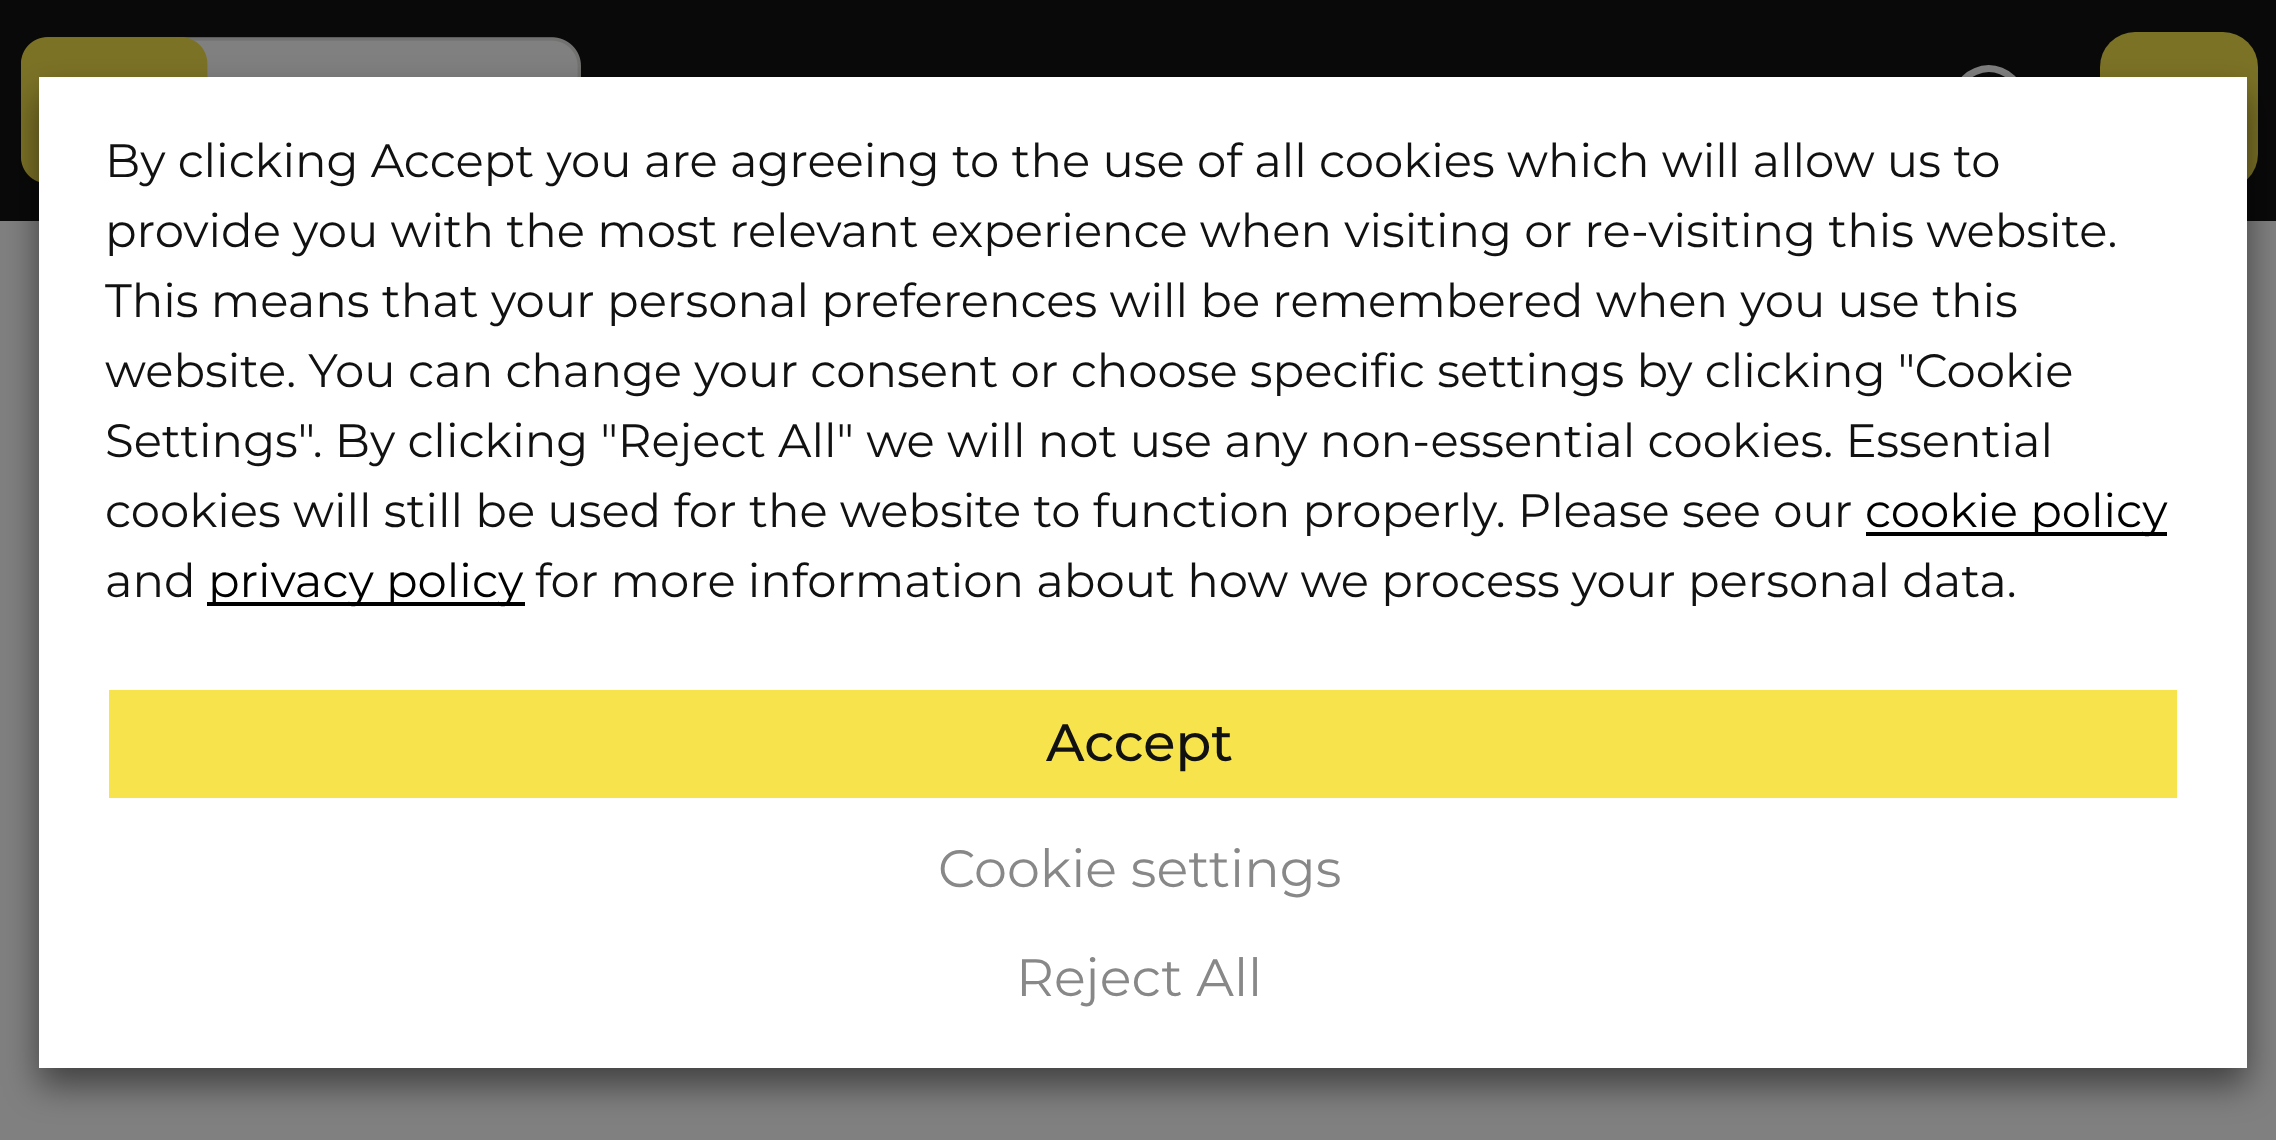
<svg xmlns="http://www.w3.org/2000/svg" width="2276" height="1140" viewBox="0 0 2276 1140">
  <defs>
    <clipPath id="clip1"><path d="M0 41H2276V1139H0ZM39 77H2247V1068H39Z" clip-rule="evenodd"/></clipPath>
    <filter id="blur1" x="-50%" y="-200%" width="200%" height="500%"><feGaussianBlur stdDeviation="17.5"/></filter>
  </defs>
  <rect width="100%" height="100%" fill="#808080"/>
  <rect x="0" y="0" width="2276" height="221" fill="#090909"/>
  <image x="21" y="37" width="560" height="145" href="img1.png"/>
  <path d="M1958 115.5C1965 132.5 1985 140 2002 133C2019 125.5 2026.5 106 2019.5 89C2012 72 1992.5 64 1975.5 71.5C1958.5 78.5 1950.5 98.5 1958 115.5ZM2012.5 126L2038.5 152" fill="none" stroke="#808080" stroke-width="7" stroke-linecap="round" stroke-linejoin="round"/>
  <rect x="2100" y="32" width="158" height="157" rx="35" fill="#7c7226"/>
  <g clip-path="url(#clip1)">
    <rect x="39" y="95" width="2208" height="990" fill="#000000" fill-opacity="0.5" filter="url(#blur1)"/>
  </g>
  <rect x="39" y="77" width="2208" height="991" fill="#ffffff"/>
  <text x="105" y="177" font-family="Montserrat" font-size="46.65" fill="#111111">By clicking Accept you are agreeing to the use of all cookies which will allow us to</text>
  <text x="105" y="247" font-family="Montserrat" font-size="46.65" fill="#111111">provide you with the most relevant experience when visiting or re-visiting this website.</text>
  <text x="105" y="317" font-family="Montserrat" font-size="46.65" fill="#111111">This means that your personal preferences will be remembered when you use this</text>
  <text x="105" y="387" font-family="Montserrat" font-size="46.65" fill="#111111">website. You can change your consent or choose specific settings by clicking "Cookie</text>
  <text x="105" y="457" font-family="Montserrat" font-size="46.65" fill="#111111">Settings". By clicking "Reject All" we will not use any non-essential cookies. Essential</text>
  <text x="105" y="527" font-family="Montserrat" font-size="46.65" fill="#111111">cookies will still be used for the website to function properly. Please see our</text>
  <rect x="1866" y="532" width="301" height="4" fill="#000000"/>
  <text x="1865" y="527" font-family="Montserrat" font-size="46.65" fill="#000000">cookie policy</text>
  <text x="105" y="597" font-family="Montserrat" font-size="46.65" fill="#111111">and</text>
  <rect x="207" y="602" width="318" height="4" fill="#000000"/>
  <text x="208" y="597" font-family="Montserrat" font-size="46.65" fill="#000000">privacy policy</text>
  <text x="535" y="597" font-family="Montserrat" font-size="46.65" fill="#111111">for more information about how we process your personal data.</text>
  <rect x="109" y="690" width="2068" height="108" fill="#f7e44c"/>
  <text x="1046" y="761" font-family="Montserrat" font-size="52.5" font-weight="500" fill="#111111">Accept</text>
  <text x="938" y="887" font-family="Montserrat" font-size="52.5" fill="#898888">Cookie settings</text>
  <text x="1016" y="996" font-family="Montserrat" font-size="52.5" fill="#898888">Reject All</text>
</svg>
